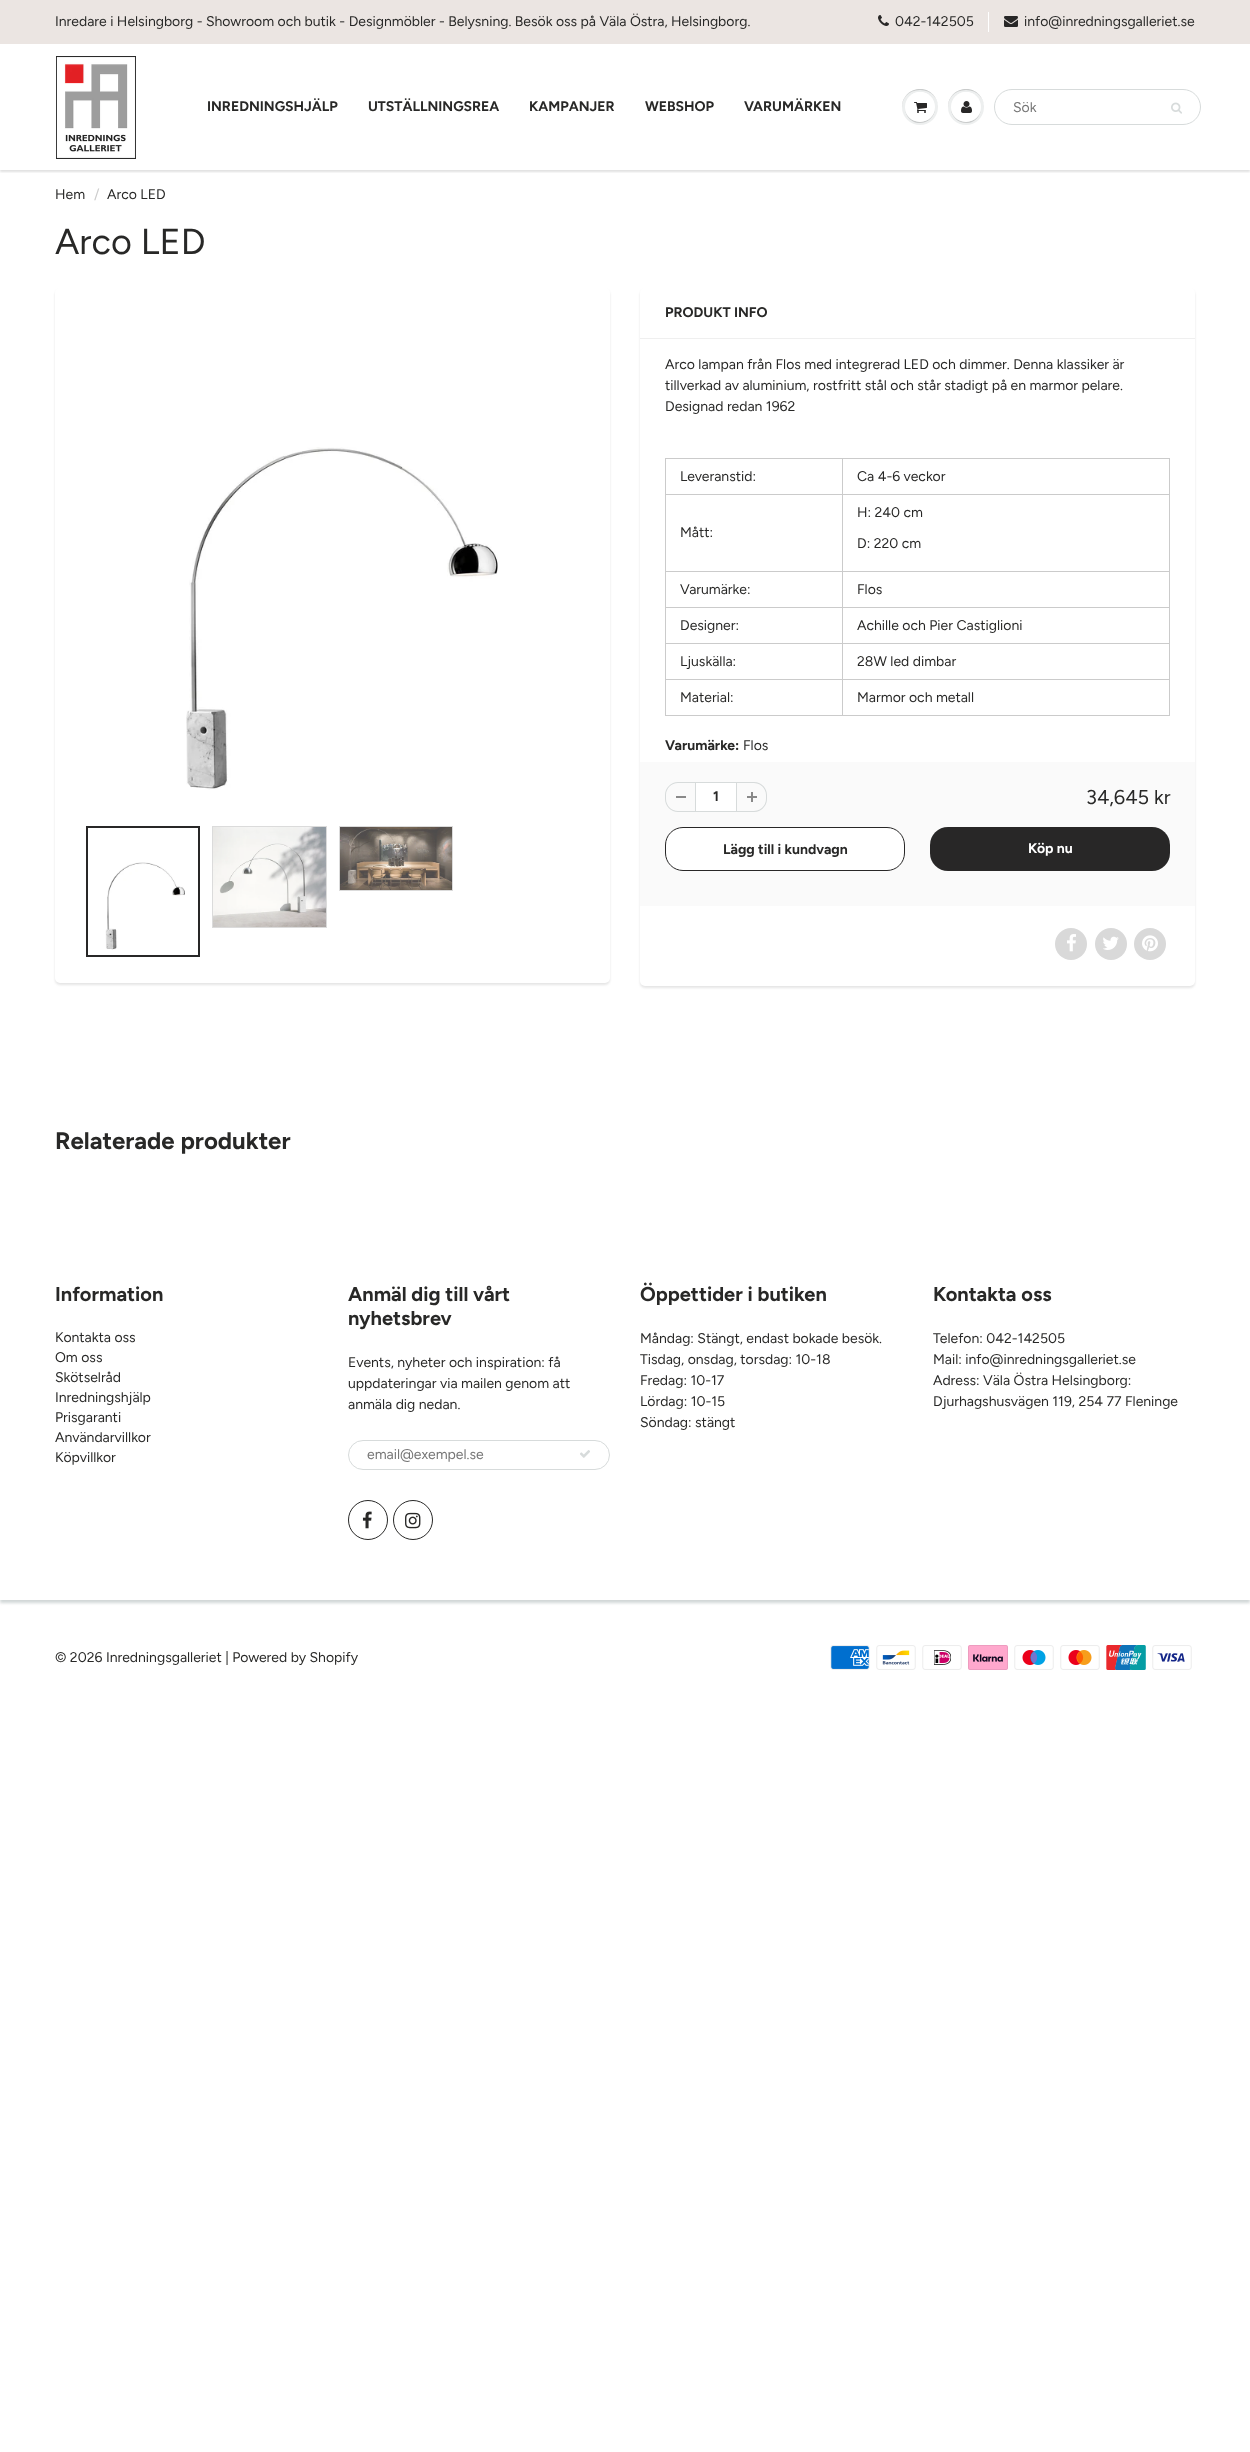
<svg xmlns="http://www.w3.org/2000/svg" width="1250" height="2452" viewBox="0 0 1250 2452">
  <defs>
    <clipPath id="clip1"><rect x="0" y="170" width="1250" height="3"/></clipPath>
    <filter id="blur1" x="-50%" y="-200%" width="200%" height="500%"><feGaussianBlur stdDeviation="1"/></filter>
    <clipPath id="clip2"><rect x="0" y="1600" width="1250" height="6"/></clipPath>
    <filter id="blur2" x="-50%" y="-200%" width="200%" height="500%"><feGaussianBlur stdDeviation="1.5"/></filter>
  </defs>
  <rect width="100%" height="100%" fill="#ffffff"/>
  <rect x="0" y="0" width="1250" height="44" fill="#ebe5e2"/>
  <text x="55" y="26" font-family="Figtree" font-size="14" fill="#282827">Inredare i Helsingborg - Showroom och butik - Designmöbler - Belysning. Besök oss på Väla Östra, Helsingborg.</text>
  <image x="878" y="15" width="11" height="11" href="img1.png"/>
  <text x="895" y="26" font-family="Figtree" font-size="14" fill="#282827">042-142505</text>
  <rect x="988" y="12" width="1" height="20" fill="#ffffff"/>
  <image x="1004" y="16" width="14" height="11" href="img2.png"/>
  <text x="1024" y="26" font-family="Figtree" font-size="14" fill="#282827">info@inredningsgalleriet.se</text>
  <g clip-path="url(#clip1)">
    <rect x="0" y="46" width="1250" height="126" fill="#0b191c" fill-opacity="0.12" filter="url(#blur1)"/>
  </g>
  <image x="56" y="56" width="80" height="103" href="img3.png"/>
  <text x="207" y="111" font-family="Figtree" font-size="14" font-weight="bold" fill="#282827">INREDNINGSHJÄLP</text>
  <text x="368" y="111" font-family="Figtree" font-size="14" font-weight="bold" fill="#282827">UTSTÄLLNINGSREA</text>
  <text x="529" y="111" font-family="Figtree" font-size="14" font-weight="bold" fill="#282827">KAMPANJER</text>
  <text x="645" y="111" font-family="Figtree" font-size="14" font-weight="bold" fill="#282827">WEBSHOP</text>
  <text x="744" y="111" font-family="Figtree" font-size="14" font-weight="bold" fill="#282827">VARUMÄRKEN</text>
  <circle cx="920" cy="107" r="18" fill="#edefef"/>
  <path d="M920 90C932 90 938 98.5 938 107.5C938 104 937 100 935 97C925 82 901.5 89.5 902 107.5C902 98.5 908 90 920 90Z" fill="#c9cbcb"/>
  <path d="M935 107.5C934.5 126.5 905.5 126.5 905 107.5C905 110.5 906 114 907.5 116.5C916 129 935.5 122.5 935 107.5Z" fill="#c9cbcb"/>
  <circle cx="920" cy="107" r="15" fill="#ffffff"/>
  <path d="M920 93C930 93 935 100 935 107.5C935 104.5 934 101 932.5 98.5C924 86 904.5 92.5 905 107.5C905 100 910 93 920 93Z" fill="#ffffff"/>
  <image x="914" y="102" width="13" height="11" href="img4.png"/>
  <circle cx="966" cy="107" r="18" fill="#edefef"/>
  <path d="M966 90C978 90 984 98.5 984 107.5C984 104 983 100 981 97C971 82 947.5 89.5 948 107.5C948 98.5 954 90 966 90Z" fill="#c9cbcb"/>
  <path d="M981 107.5C980.5 126.5 951.5 126.5 951 107.5C950.5 122.5 970 129 978.5 116.5C980 114 981 110.5 981 107.5Z" fill="#c9cbcb"/>
  <circle cx="966" cy="107" r="15" fill="#ffffff"/>
  <path d="M966 93C976 93 981 100 981 107.5C981 104.5 980 101 978.5 98.5C970 86 950.5 92.5 951 107.5C951 100 956 93 966 93Z" fill="#ffffff"/>
  <image x="961" y="101" width="11" height="12" href="img5.png"/>
  <rect x="994.5" y="89.5" width="206" height="35" rx="17.5" fill="none" stroke="#d7dbdb"/>
  <text x="1013" y="112" font-family="Figtree" font-size="14" fill="#757575">Sök</text>
  <image x="1171" y="102" width="11" height="12" href="img6.png"/>
  <text x="55" y="199" font-family="Figtree" font-size="14" fill="#282827">Hem</text>
  <text x="94" y="199" font-family="Figtree" font-size="14" fill="#cccccc">/</text>
  <text x="107" y="199" font-family="Figtree" font-size="14" fill="#282827">Arco LED</text>
  <text x="55" y="254" font-family="Figtree" font-size="36" fill="#282827">Arco LED</text>
  <rect x="55" y="290" width="555" height="695" rx="5" fill="#0b191c" fill-opacity="0.1" filter="url(#blur1)"/>
  <rect x="55" y="288" width="555" height="695" rx="5" fill="#ffffff"/>
  <image x="186" y="447" width="312" height="343" href="img7.png"/>
  <rect x="87" y="827" width="112" height="129" fill="none" stroke="#282727" stroke-width="2"/>
  <image x="105" y="862" width="80" height="88" href="img8.png"/>
  <rect x="212.5" y="826.5" width="114" height="101" fill="none" stroke="#dbdbdb"/>
  <image x="213" y="827" width="113" height="100" href="img9.png"/>
  <rect x="339.5" y="826.5" width="113" height="64" fill="none" stroke="#dbdbdb"/>
  <image x="340" y="827" width="112" height="63" href="img10.png"/>
  <rect x="640" y="290" width="555" height="698" rx="5" fill="#0b191c" fill-opacity="0.1" filter="url(#blur1)"/>
  <rect x="640" y="288" width="555" height="698" rx="5" fill="#ffffff"/>
  <rect x="640" y="338" width="555" height="1" fill="#efefef"/>
  <text x="665" y="317" font-family="Figtree" font-size="14" font-weight="bold" fill="#282827">PRODUKT INFO</text>
  <text x="665" y="369" font-family="Figtree" font-size="14" fill="#282827">Arco lampan från Flos med integrerad LED och dimmer. Denna klassiker är</text>
  <text x="665" y="390" font-family="Figtree" font-size="14" fill="#282827">tillverkad av aluminium, rostfritt stål och står stadigt på en marmor pelare.</text>
  <text x="665" y="411" font-family="Figtree" font-size="14" fill="#282827">Designad redan 1962</text>
  <rect x="665" y="458" width="505" height="1" fill="#cbcbcb"/>
  <rect x="1169" y="458" width="1" height="258" fill="#cbcbcb"/>
  <rect x="665" y="715" width="505" height="1" fill="#cbcbcb"/>
  <rect x="665" y="458" width="1" height="258" fill="#cbcbcb"/>
  <rect x="842" y="679" width="1" height="37" fill="#cbcbcb"/>
  <rect x="842" y="679" width="328" height="1" fill="#cbcbcb"/>
  <rect x="842" y="643" width="1" height="37" fill="#cbcbcb"/>
  <rect x="842" y="643" width="328" height="1" fill="#cbcbcb"/>
  <rect x="842" y="607" width="1" height="37" fill="#cbcbcb"/>
  <rect x="842" y="607" width="328" height="1" fill="#cbcbcb"/>
  <rect x="842" y="571" width="1" height="37" fill="#cbcbcb"/>
  <rect x="842" y="571" width="328" height="1" fill="#cbcbcb"/>
  <rect x="842" y="494" width="1" height="78" fill="#cbcbcb"/>
  <rect x="842" y="494" width="328" height="1" fill="#cbcbcb"/>
  <rect x="842" y="458" width="1" height="37" fill="#cbcbcb"/>
  <rect x="665" y="494" width="178" height="1" fill="#cbcbcb"/>
  <text x="680" y="481" font-family="Figtree" font-size="14" fill="#282827">Leveranstid:</text>
  <text x="857" y="481" font-family="Figtree" font-size="14" fill="#282827">Ca 4-6 veckor</text>
  <rect x="665" y="571" width="178" height="1" fill="#cbcbcb"/>
  <text x="680" y="537" font-family="Figtree" font-size="14" fill="#282827">Mått:</text>
  <text x="857" y="517" font-family="Figtree" font-size="14" fill="#282827">H: 240 cm</text>
  <text x="857" y="548" font-family="Figtree" font-size="14" fill="#282827">D: 220 cm</text>
  <rect x="665" y="607" width="178" height="1" fill="#cbcbcb"/>
  <text x="680" y="594" font-family="Figtree" font-size="14" fill="#282827">Varumärke:</text>
  <text x="857" y="594" font-family="Figtree" font-size="14" fill="#282827">Flos</text>
  <rect x="665" y="643" width="178" height="1" fill="#cbcbcb"/>
  <text x="680" y="630" font-family="Figtree" font-size="14" fill="#282827">Designer:</text>
  <text x="857" y="630" font-family="Figtree" font-size="14" fill="#282827">Achille och Pier Castiglioni</text>
  <rect x="665" y="679" width="178" height="1" fill="#cbcbcb"/>
  <text x="680" y="666" font-family="Figtree" font-size="14" fill="#282827">Ljuskälla:</text>
  <text x="857" y="666" font-family="Figtree" font-size="14" fill="#282827">28W led dimbar</text>
  <text x="680" y="702" font-family="Figtree" font-size="14" fill="#282827">Material:</text>
  <text x="857" y="702" font-family="Figtree" font-size="14" fill="#282827">Marmor och metall</text>
  <text x="665" y="750" font-family="Figtree" font-size="14" font-weight="bold" fill="#282827">Varumärke:</text>
  <text x="743" y="750" font-family="Figtree" font-size="14" fill="#282827">Flos</text>
  <rect x="640" y="762" width="555" height="144" fill="#fafafa"/>
  <rect x="676" y="796" width="10" height="2" fill="#898989"/>
  <path d="M678 782H695V812H678C671 812 665 806 665 799V795C665 788 671 782 678 782ZM678 783H695V811H678C671.5 811 666 805.5 666 799V795C666 788.5 671.5 783 678 783Z" fill="#d7dbdb" fill-rule="evenodd"/>
  <rect x="695.5" y="782.5" width="41" height="29" fill="#ffffff" stroke="#d7dbdb"/>
  <text x="713" y="801" font-family="Figtree" font-size="14" font-weight="bold" fill="#282827">1</text>
  <image x="747" y="792" width="10" height="10" href="img11.png"/>
  <path d="M737 782H754C761 782 767 788 767 795V799C767 806 761 812 754 812H737ZM737 783H754C760.5 783 766 788.5 766 795V799C766 805.5 760.5 811 754 811H737Z" fill="#d7dbdb" fill-rule="evenodd"/>
  <text x="1086" y="804" font-family="Figtree" font-size="20" fill="#282827">34,645 kr</text>
  <rect x="665.5" y="827.5" width="239" height="43" rx="17.5" fill="#ffffff" stroke="#282727"/>
  <text x="723" y="854" font-family="Figtree" font-size="14" font-weight="bold" fill="#282827">Lägg till i kundvagn</text>
  <rect x="930" y="827" width="240" height="44" rx="18" fill="#282727"/>
  <text x="1028" y="853" font-family="Figtree" font-size="14" font-weight="bold" fill="#ffffff">Köp nu</text>
  <circle cx="1071" cy="944" r="16" fill="#d9d9d9"/>
  <image x="1067" y="934" width="9" height="18" href="img12.png"/>
  <circle cx="1111" cy="944" r="16" fill="#d9d9d9"/>
  <image x="1103" y="936" width="16" height="14" href="img13.png"/>
  <circle cx="1150" cy="944" r="16" fill="#d9d9d9"/>
  <image x="1142" y="935" width="16" height="17" href="img14.png"/>
  <text x="55" y="1149" font-family="Figtree" font-size="24" font-weight="bold" fill="#282827">Relaterade produkter</text>
  <g clip-path="url(#clip2)">
    <rect x="0" y="1239" width="1250" height="364" fill="#d1d7d7" filter="url(#blur2)"/>
  </g>
  <text x="55" y="1301" font-family="Figtree" font-size="20" font-weight="bold" fill="#282827">Information</text>
  <text x="55" y="1342" font-family="Figtree" font-size="14" fill="#282827">Kontakta oss</text>
  <text x="55" y="1362" font-family="Figtree" font-size="14" fill="#282827">Om oss</text>
  <text x="55" y="1382" font-family="Figtree" font-size="14" fill="#282827">Skötselråd</text>
  <text x="55" y="1402" font-family="Figtree" font-size="14" fill="#282827">Inredningshjälp</text>
  <text x="55" y="1422" font-family="Figtree" font-size="14" fill="#282827">Prisgaranti</text>
  <text x="55" y="1442" font-family="Figtree" font-size="14" fill="#282827">Användarvillkor</text>
  <text x="55" y="1462" font-family="Figtree" font-size="14" fill="#282827">Köpvillkor</text>
  <text x="348" y="1301" font-family="Figtree" font-size="20" font-weight="bold" fill="#282827">Anmäl dig till vårt</text>
  <text x="348" y="1325" font-family="Figtree" font-size="20" font-weight="bold" fill="#282827">nyhetsbrev</text>
  <text x="348" y="1367" font-family="Figtree" font-size="14" fill="#282827">Events, nyheter och inspiration: få</text>
  <text x="348" y="1388" font-family="Figtree" font-size="14" fill="#282827">uppdateringar via mailen genom att</text>
  <text x="348" y="1409" font-family="Figtree" font-size="14" fill="#282827">anmäla dig nedan.</text>
  <rect x="348.5" y="1440.5" width="261" height="29" rx="14.5" fill="none" stroke="#d7dbdb"/>
  <text x="367" y="1459" font-family="Figtree" font-size="14" fill="#757575">email@exempel.se</text>
  <image x="580" y="1450" width="10" height="8" href="img15.png"/>
  <circle cx="368" cy="1520" r="19.5" fill="none" stroke="#282827"/>
  <image x="362" y="1511" width="10" height="18" href="img16.png"/>
  <circle cx="413" cy="1520" r="19.5" fill="none" stroke="#282827"/>
  <image x="405" y="1512" width="16" height="17" href="img17.png"/>
  <text x="640" y="1301" font-family="Figtree" font-size="20" font-weight="bold" fill="#282827">Öppettider i butiken</text>
  <text x="640" y="1343" font-family="Figtree" font-size="14" fill="#282827">Måndag: Stängt, endast bokade besök.</text>
  <text x="640" y="1364" font-family="Figtree" font-size="14" fill="#282827">Tisdag, onsdag, torsdag: 10-18</text>
  <text x="640" y="1385" font-family="Figtree" font-size="14" fill="#282827">Fredag: 10-17</text>
  <text x="640" y="1406" font-family="Figtree" font-size="14" fill="#282827">Lördag: 10-15</text>
  <text x="640" y="1427" font-family="Figtree" font-size="14" fill="#282827">Söndag: stängt</text>
  <text x="933" y="1301" font-family="Figtree" font-size="20" font-weight="bold" fill="#282827">Kontakta oss</text>
  <text x="933" y="1343" font-family="Figtree" font-size="14" fill="#282827">Telefon: 042-142505</text>
  <text x="933" y="1364" font-family="Figtree" font-size="14" fill="#282827">Mail: info@inredningsgalleriet.se</text>
  <text x="933" y="1385" font-family="Figtree" font-size="14" fill="#282827">Adress: Väla Östra Helsingborg:</text>
  <text x="933" y="1406" font-family="Figtree" font-size="14" fill="#282827">Djurhagshusvägen 119, 254 77 Fleninge</text>
  <text x="55" y="1662" font-family="Figtree" font-size="14" fill="#282827">© 2026 Inredningsgalleriet | Powered by Shopify</text>
  <image x="830" y="1645" width="40" height="25" href="img18.png"/>
  <image x="876" y="1645" width="40" height="25" href="img19.png"/>
  <image x="922" y="1645" width="40" height="25" href="img20.png"/>
  <image x="968" y="1645" width="40" height="25" href="img21.png"/>
  <image x="1014" y="1645" width="40" height="25" href="img22.png"/>
  <image x="1060" y="1645" width="40" height="25" href="img23.png"/>
  <image x="1106" y="1645" width="40" height="25" href="img24.png"/>
  <image x="1152" y="1645" width="40" height="25" href="img25.png"/>
</svg>
